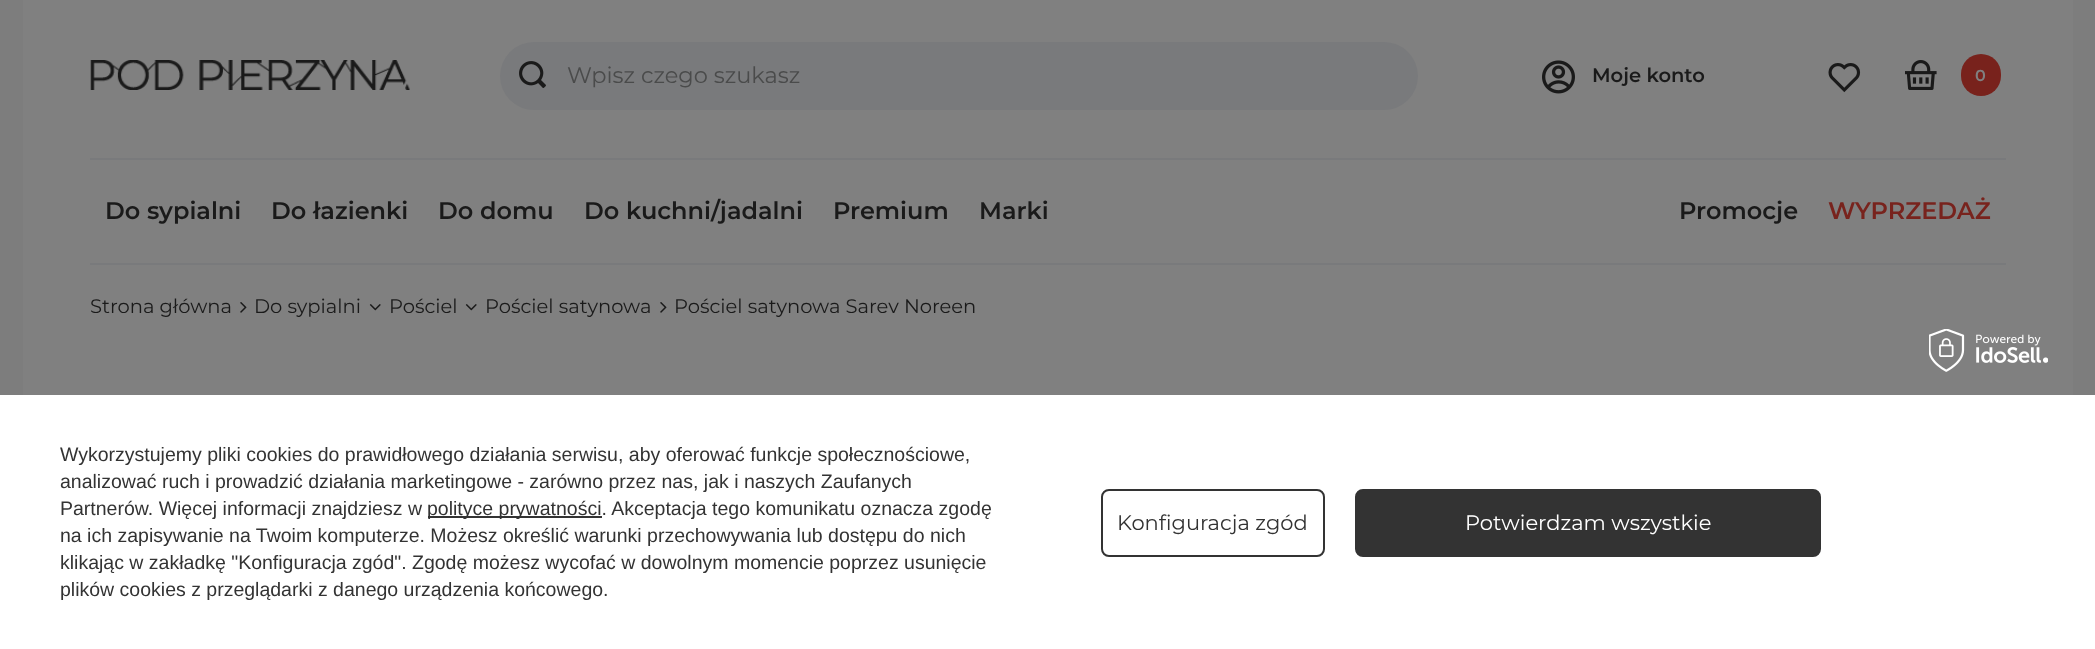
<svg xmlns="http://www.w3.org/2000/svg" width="2095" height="649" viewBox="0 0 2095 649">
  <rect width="100%" height="100%" fill="#7d7d7d"/>
  <rect x="23" y="0" width="2050" height="395" fill="#808080"/>
  <image x="90" y="60" width="320" height="30" href="img1.png"/>
  <rect x="500" y="42" width="918" height="68" rx="34" fill="#797a7c"/>
  <image x="519" y="61" width="27" height="27" href="img2.png"/>
  <text x="567" y="83" font-family="Montserrat" font-size="22.5" fill="#4a4b4b">Wpisz czego szukasz</text>
  <image x="1542" y="60" width="33" height="34" href="img3.png"/>
  <text x="1592" y="82" font-family="Montserrat" font-size="19.5" font-weight="600" fill="#1a1a1a">Moje konto</text>
  <image x="1828" y="63" width="33" height="30" href="img4.png"/>
  <image x="1905" y="60" width="32" height="30" href="img5.png"/>
  <rect x="1961" y="54" width="40" height="42" rx="20" fill="#78221c"/>
  <text x="1975" y="81" font-family="Montserrat" font-size="16" font-weight="600" fill="#808080">0</text>
  <rect x="90" y="158" width="1916" height="2" fill="#797a7c"/>
  <rect x="90" y="263" width="1916" height="2" fill="#797a7c"/>
  <text x="105" y="219" font-family="Montserrat" font-size="24" font-weight="600" fill="#1a1a1a">Do sypialni</text>
  <text x="271" y="219" font-family="Montserrat" font-size="24" font-weight="600" fill="#1a1a1a">Do łazienki</text>
  <text x="438" y="219" font-family="Montserrat" font-size="24" font-weight="600" fill="#1a1a1a">Do domu</text>
  <text x="584" y="219" font-family="Montserrat" font-size="24" font-weight="600" fill="#1a1a1a">Do kuchni/jadalni</text>
  <text x="833" y="219" font-family="Montserrat" font-size="24" font-weight="600" fill="#1a1a1a">Premium</text>
  <text x="979" y="219" font-family="Montserrat" font-size="24" font-weight="600" fill="#1a1a1a">Marki</text>
  <text x="1679" y="219" font-family="Montserrat" font-size="24" font-weight="600" fill="#1a1a1a">Promocje</text>
  <text x="1828" y="219" font-family="Montserrat" font-size="24" font-weight="600" fill="#78231d">WYPRZEDAŻ</text>
  <text x="90" y="313" font-family="Montserrat" font-size="19.5" fill="#1a1a1a">Strona główna</text>
  <image x="240" y="302" width="7" height="11" href="img6.png"/>
  <text x="254" y="313" font-family="Montserrat" font-size="19.5" fill="#1a1a1a">Do sypialni</text>
  <image x="369" y="304" width="12" height="7" href="img7.png"/>
  <text x="389" y="313" font-family="Montserrat" font-size="19.5" fill="#1a1a1a">Pościel</text>
  <image x="465" y="304" width="12" height="7" href="img7.png"/>
  <text x="485" y="313" font-family="Montserrat" font-size="19.5" fill="#1a1a1a">Pościel satynowa</text>
  <image x="660" y="302" width="7" height="11" href="img6.png"/>
  <text x="674" y="313" font-family="Montserrat" font-size="19.5" fill="#1a1a1a">Pościel satynowa Sarev Noreen</text>
  <rect x="0" y="395" width="2095" height="254" fill="#ffffff"/>
  <image x="1929" y="329" width="119" height="43" href="img8.png"/>
  <text x="60" y="461" font-family="Liberation Sans" font-size="19.5" fill="#333333">Wykorzystujemy pliki cookies do prawidłowego działania serwisu, aby oferować funkcje społecznościowe,</text>
  <text x="60" y="488" font-family="Liberation Sans" font-size="19.5" fill="#333333">analizować ruch i prowadzić działania marketingowe - zarówno przez nas, jak i naszych Zaufanych</text>
  <text x="60" y="515" font-family="Liberation Sans" font-size="19.5" fill="#333333">Partnerów. Więcej informacji znajdziesz w</text>
  <rect x="428" y="516" width="174" height="2" fill="#333333"/>
  <text x="427" y="515" font-family="Liberation Sans" font-size="19.5" fill="#333333">polityce prywatności. Akceptacja tego komunikatu oznacza zgodę</text>
  <text x="60" y="542" font-family="Liberation Sans" font-size="19.5" fill="#333333">na ich zapisywanie na Twoim komputerze. Możesz określić warunki przechowywania lub dostępu do nich</text>
  <text x="60" y="569" font-family="Liberation Sans" font-size="19.5" fill="#333333">klikając w zakładkę "Konfiguracja zgód". Zgodę możesz wycofać w dowolnym momencie poprzez usunięcie</text>
  <text x="60" y="596" font-family="Liberation Sans" font-size="19.5" fill="#333333">plików cookies z przeglądarki z danego urządzenia końcowego.</text>
  <rect x="1102" y="490" width="222" height="66" rx="7" fill="none" stroke="#333333" stroke-width="2"/>
  <text x="1117" y="530" font-family="Montserrat" font-size="21" fill="#333333">Konfiguracja zgód</text>
  <rect x="1356" y="490" width="464" height="66" rx="7" fill="#333333" stroke="#333333" stroke-width="2"/>
  <text x="1465" y="530" font-family="Montserrat" font-size="21" fill="#ffffff">Potwierdzam wszystkie</text>
</svg>
